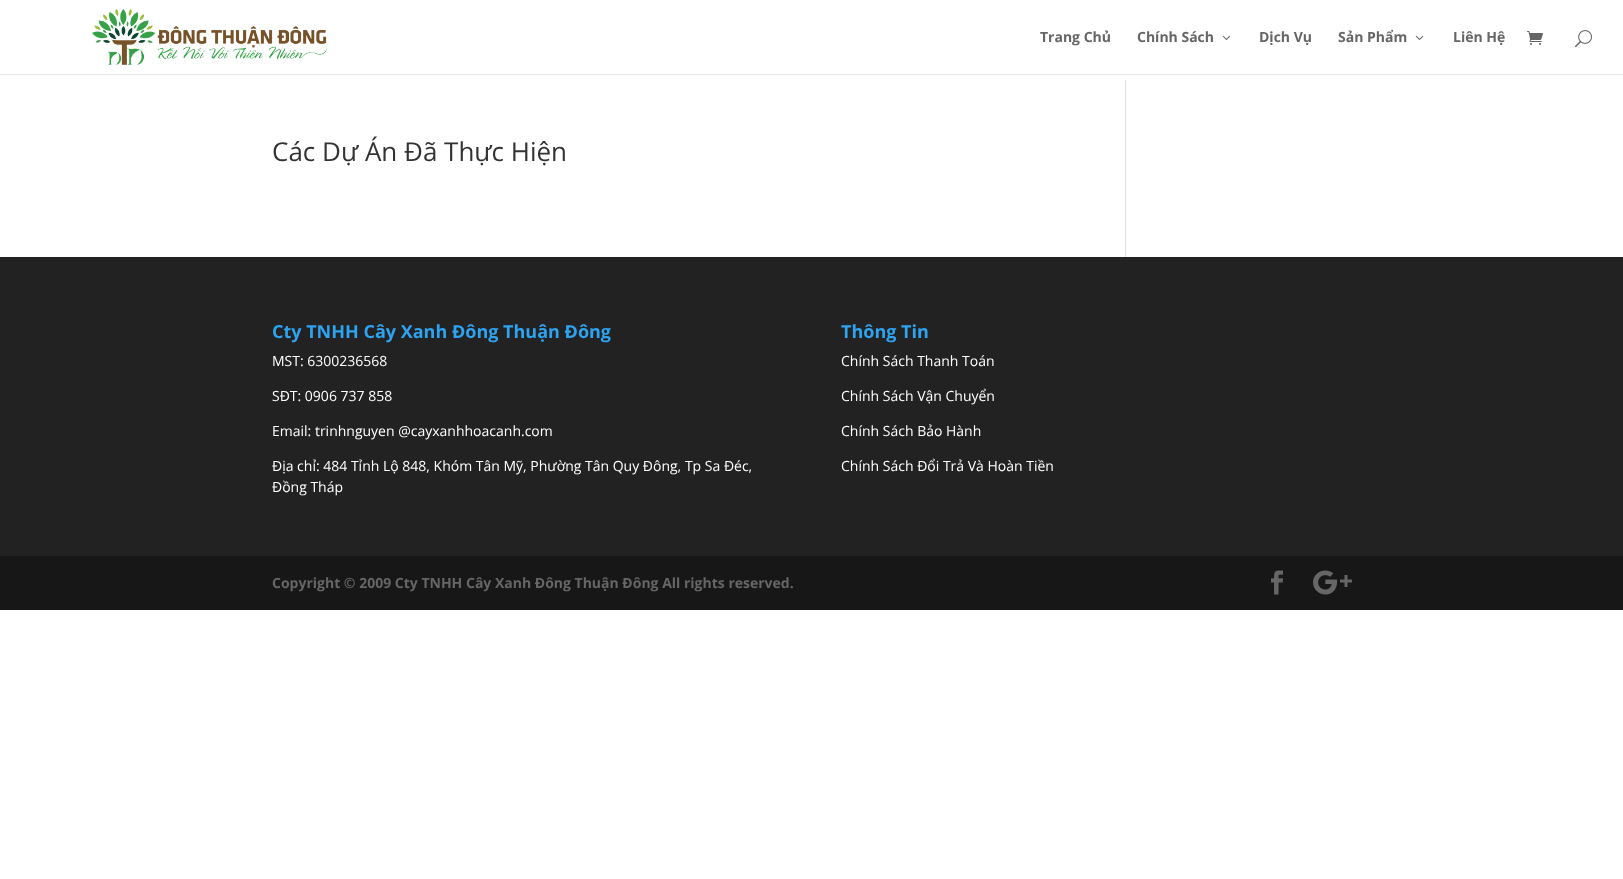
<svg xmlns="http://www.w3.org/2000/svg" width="1623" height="879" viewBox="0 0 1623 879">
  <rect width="100%" height="100%" fill="#ffffff"/>
  <rect x="0" y="74" width="1623" height="1" fill="#e6e6e6"/>
  <image x="92" y="9" width="235" height="56" href="img1.png"/>
  <text x="1040" y="42" font-family="Open Sans" font-size="14" font-weight="bold" fill="#666666">Trang Chủ</text>
  <text x="1137" y="42" font-family="Open Sans" font-size="14" font-weight="bold" fill="#666666">Chính Sách</text>
  <image x="1222" y="35" width="9" height="5" href="img2.png"/>
  <text x="1259" y="42" font-family="Open Sans" font-size="14" font-weight="bold" fill="#666666">Dịch Vụ</text>
  <text x="1338" y="42" font-family="Open Sans" font-size="14" font-weight="bold" fill="#666666">Sản Phẩm</text>
  <image x="1415" y="35" width="9" height="5" href="img2.png"/>
  <text x="1453" y="42" font-family="Open Sans" font-size="14" font-weight="bold" fill="#666666">Liên Hệ</text>
  <image x="1527" y="31" width="16" height="14" href="img3.png"/>
  <image x="1575" y="30" width="17" height="18" href="img4.png"/>
  <text x="272" y="161" font-family="Open Sans" font-size="26" fill="#333333">Các Dự Án Đã Thực Hiện</text>
  <rect x="1125" y="80" width="1" height="177" fill="#e2e2e2"/>
  <rect x="0" y="257" width="1623" height="299" fill="#222222"/>
  <text x="272" y="338" font-family="Open Sans" font-size="18" font-weight="bold" fill="#2ea3f2">Cty TNHH Cây Xanh Đông Thuận Đông</text>
  <text x="272" y="366" font-family="Open Sans" font-size="14" fill="#ffffff">MST: 6300236568</text>
  <text x="272" y="401" font-family="Open Sans" font-size="14" fill="#ffffff">SĐT: 0906 737 858</text>
  <text x="272" y="436" font-family="Open Sans" font-size="14" fill="#ffffff">Email: trinhnguyen @cayxanhhoacanh.com</text>
  <text x="272" y="471" font-family="Open Sans" font-size="14" fill="#ffffff">Địa chỉ: 484 Tỉnh Lộ 848, Khóm Tân Mỹ, Phường Tân Quy Đông, Tp Sa Đéc,</text>
  <text x="272" y="492" font-family="Open Sans" font-size="14" fill="#ffffff">Đồng Tháp</text>
  <text x="841" y="338" font-family="Open Sans" font-size="18" font-weight="bold" fill="#2ea3f2">Thông Tin</text>
  <text x="841" y="366" font-family="Open Sans" font-size="14" fill="#ffffff">Chính Sách Thanh Toán</text>
  <text x="841" y="401" font-family="Open Sans" font-size="14" fill="#ffffff">Chính Sách Vận Chuyển</text>
  <text x="841" y="436" font-family="Open Sans" font-size="14" fill="#ffffff">Chính Sách Bảo Hành</text>
  <text x="841" y="471" font-family="Open Sans" font-size="14" fill="#ffffff">Chính Sách Đổi Trả Và Hoàn Tiền</text>
  <rect x="0" y="556" width="1623" height="54" fill="#171717"/>
  <text x="272" y="588" font-family="Open Sans" font-size="14" font-weight="bold" fill="#666666">Copyright © 2009 Cty TNHH Cây Xanh Đông Thuận Đông All rights reserved.</text>
  <image x="1271" y="570" width="12" height="25" href="img5.png"/>
  <image x="1313" y="570" width="39" height="25" href="img6.png"/>
</svg>
